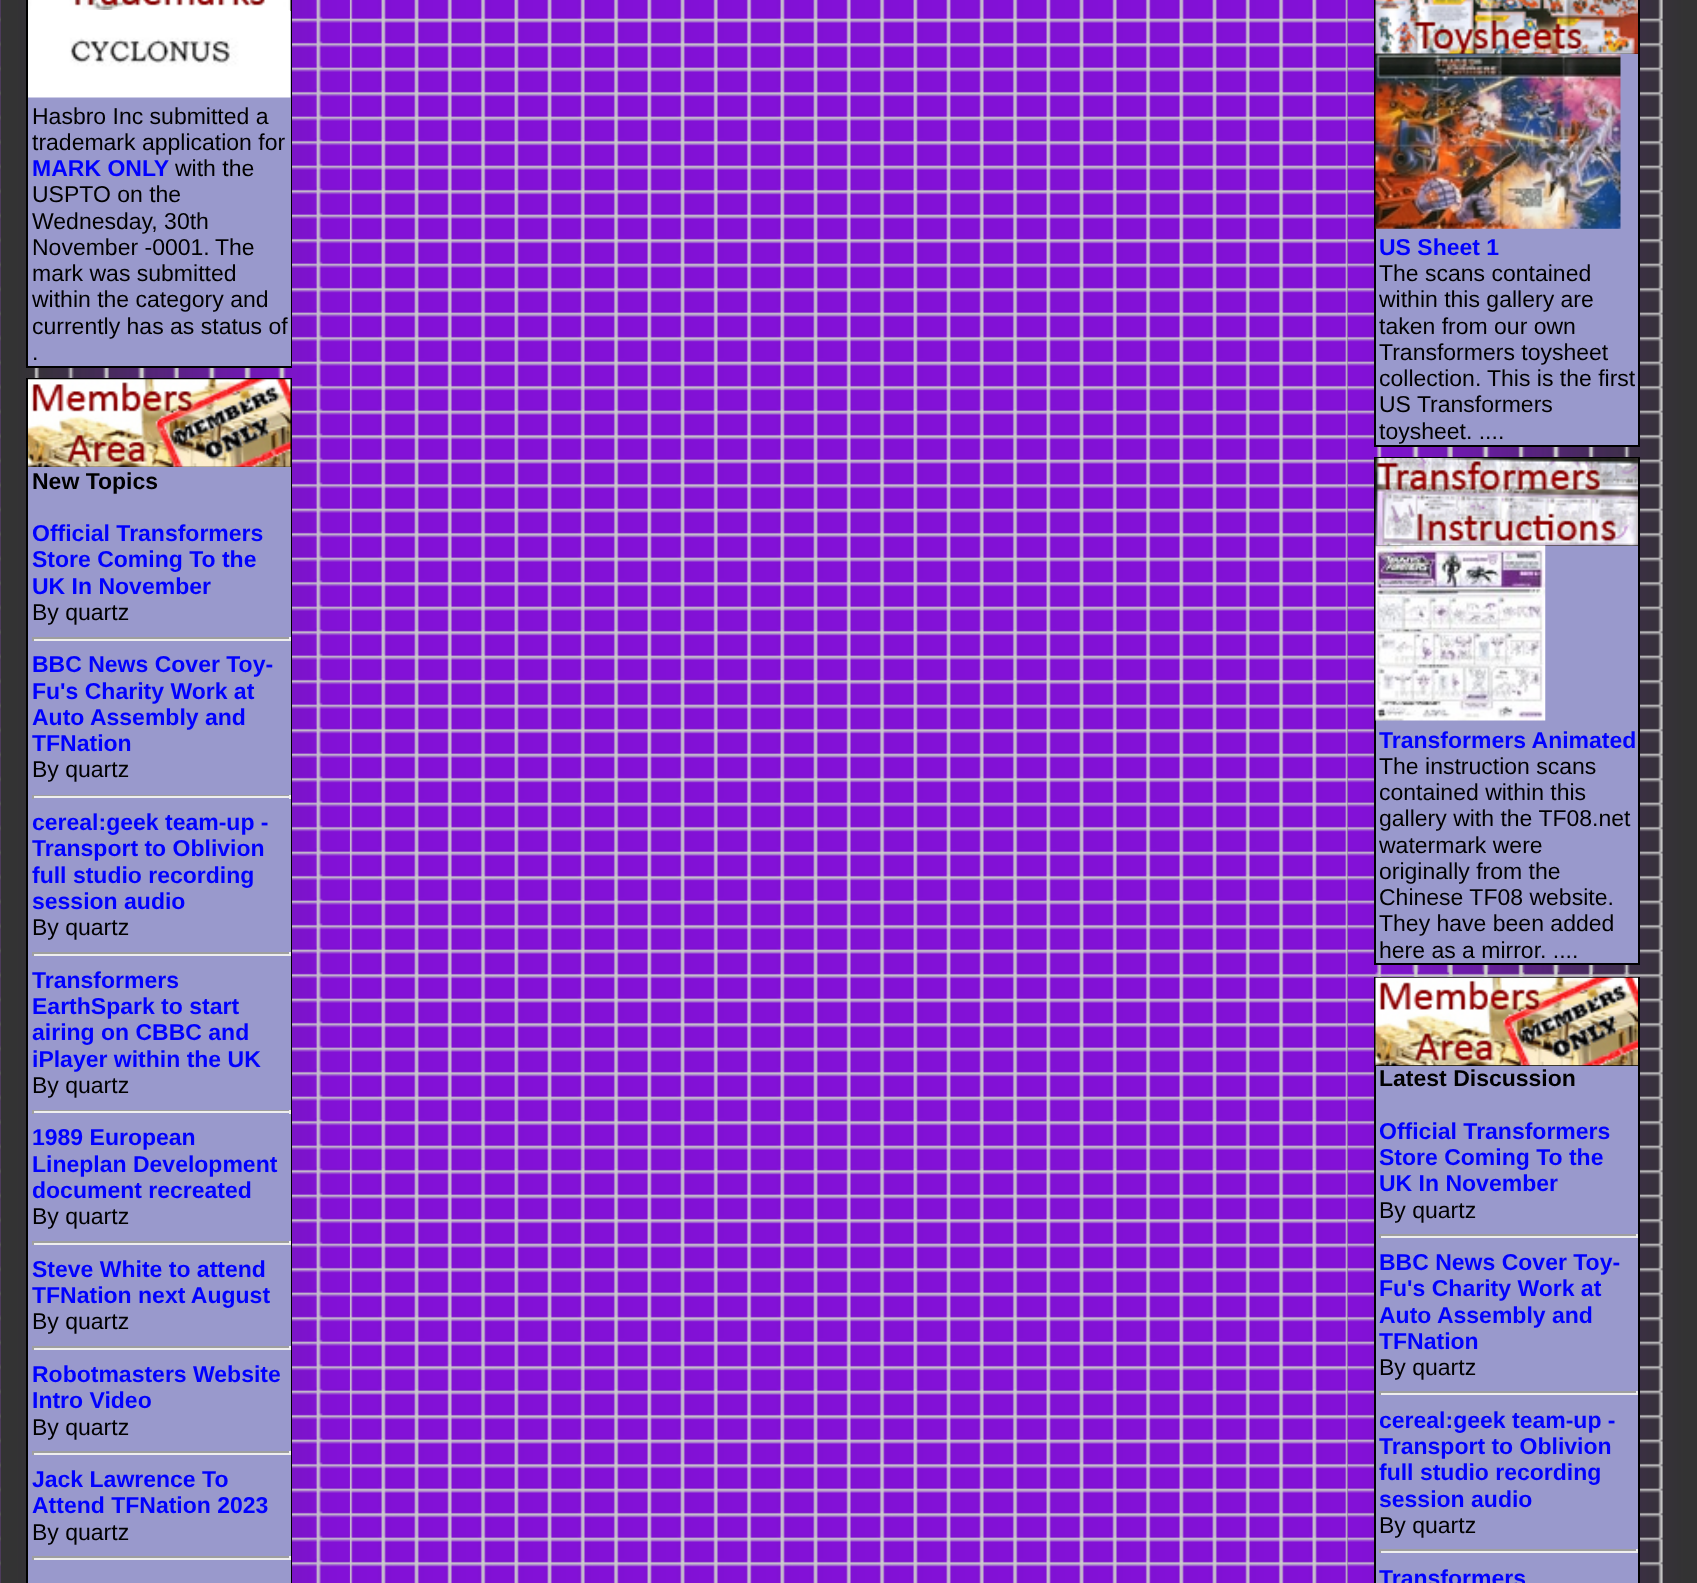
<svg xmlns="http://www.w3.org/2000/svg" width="1697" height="1583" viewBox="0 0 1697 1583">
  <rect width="100%" height="100%" fill="#ffffff"/>
  <image x="0" y="0" width="350" height="1583" href="img1.png"/>
  <image x="350" y="0" width="998" height="1583" href="img2.png"/>
  <image x="1347" y="0" width="350" height="1583" href="img3.png"/>
  <rect x="27" y="-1" width="264" height="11" fill="none" stroke="#000000" stroke-width="2"/>
  <image x="28" y="0" width="263" height="10" href="img4.png"/>
  <rect x="28" y="11" width="263" height="355" fill="#9999cc"/>
  <rect x="291" y="11" width="1" height="357" fill="#000000"/>
  <rect x="26" y="366" width="266" height="2" fill="#000000"/>
  <rect x="26" y="11" width="2" height="357" fill="#000000"/>
  <image x="28" y="10" width="263" height="88" href="img5.png"/>
  <text x="32" y="124" font-family="Liberation Sans" font-size="23" fill="#000000">Hasbro Inc submitted a</text>
  <text x="32" y="150" font-family="Liberation Sans" font-size="23" fill="#000000">trademark application for</text>
  <text x="32" y="176" font-family="Liberation Sans" font-size="23" font-weight="bold" fill="#0000ff">MARK ONLY</text>
  <text x="175" y="176" font-family="Liberation Sans" font-size="23" fill="#000000">with the</text>
  <text x="32" y="202" font-family="Liberation Sans" font-size="23" fill="#000000">USPTO on the</text>
  <text x="32" y="229" font-family="Liberation Sans" font-size="23" fill="#000000">Wednesday, 30th</text>
  <text x="32" y="255" font-family="Liberation Sans" font-size="23" fill="#000000">November -0001.</text>
  <text x="215" y="255" font-family="Liberation Sans" font-size="23" fill="#000000">The</text>
  <text x="32" y="281" font-family="Liberation Sans" font-size="23" fill="#000000">mark was submitted</text>
  <text x="32" y="307" font-family="Liberation Sans" font-size="23" fill="#000000">within the category and</text>
  <text x="32" y="334" font-family="Liberation Sans" font-size="23" fill="#000000">currently has as status of</text>
  <text x="32" y="360" font-family="Liberation Sans" font-size="23" fill="#000000">.</text>
  <rect x="27" y="379" width="264" height="87" fill="none" stroke="#000000" stroke-width="2"/>
  <image x="28" y="379" width="263" height="88" href="img6.png"/>
  <rect x="28" y="467" width="263" height="1116" fill="#9999cc"/>
  <rect x="291" y="467" width="1" height="1116" fill="#000000"/>
  <rect x="26" y="467" width="2" height="1116" fill="#000000"/>
  <text x="32" y="489" font-family="Liberation Sans" font-size="23" font-weight="bold" fill="#000000">New Topics</text>
  <text x="32" y="541" font-family="Liberation Sans" font-size="23" font-weight="bold" fill="#0000ff">Official Transformers</text>
  <text x="32" y="567" font-family="Liberation Sans" font-size="23" font-weight="bold" fill="#0000ff">Store Coming To the</text>
  <text x="32" y="594" font-family="Liberation Sans" font-size="23" font-weight="bold" fill="#0000ff">UK In November</text>
  <text x="32" y="620" font-family="Liberation Sans" font-size="23" fill="#000000">By quartz</text>
  <rect x="32" y="637" width="259" height="2" fill="#9f9f9f"/>
  <rect x="289" y="637" width="2" height="4" fill="#eeeeee"/>
  <rect x="32" y="639" width="259" height="2" fill="#eeeeee"/>
  <rect x="32" y="637" width="2" height="4" fill="#9f9f9f"/>
  <text x="32" y="672" font-family="Liberation Sans" font-size="23" font-weight="bold" fill="#0000ff">BBC News Cover Toy-</text>
  <text x="32" y="699" font-family="Liberation Sans" font-size="23" font-weight="bold" fill="#0000ff">Fu's Charity Work at</text>
  <text x="32" y="725" font-family="Liberation Sans" font-size="23" font-weight="bold" fill="#0000ff">Auto Assembly and</text>
  <text x="32" y="751" font-family="Liberation Sans" font-size="23" font-weight="bold" fill="#0000ff">TFNation</text>
  <text x="32" y="777" font-family="Liberation Sans" font-size="23" fill="#000000">By quartz</text>
  <rect x="32" y="795" width="259" height="1" fill="#9f9f9f"/>
  <rect x="289" y="795" width="2" height="4" fill="#eeeeee"/>
  <rect x="32" y="796" width="259" height="2" fill="#eeeeee"/>
  <rect x="32" y="795" width="2" height="4" fill="#9f9f9f"/>
  <text x="32" y="830" font-family="Liberation Sans" font-size="23" font-weight="bold" fill="#0000ff">cereal:geek team-up -</text>
  <text x="32" y="856" font-family="Liberation Sans" font-size="23" font-weight="bold" fill="#0000ff">Transport to Oblivion</text>
  <text x="32" y="883" font-family="Liberation Sans" font-size="23" font-weight="bold" fill="#0000ff">full studio recording</text>
  <text x="32" y="909" font-family="Liberation Sans" font-size="23" font-weight="bold" fill="#0000ff">session audio</text>
  <text x="32" y="935" font-family="Liberation Sans" font-size="23" fill="#000000">By quartz</text>
  <rect x="32" y="952" width="259" height="2" fill="#9f9f9f"/>
  <rect x="289" y="952" width="2" height="4" fill="#eeeeee"/>
  <rect x="32" y="954" width="259" height="2" fill="#eeeeee"/>
  <rect x="32" y="952" width="2" height="4" fill="#9f9f9f"/>
  <text x="32" y="988" font-family="Liberation Sans" font-size="23" font-weight="bold" fill="#0000ff">Transformers</text>
  <text x="32" y="1014" font-family="Liberation Sans" font-size="23" font-weight="bold" fill="#0000ff">EarthSpark to start</text>
  <text x="32" y="1040" font-family="Liberation Sans" font-size="23" font-weight="bold" fill="#0000ff">airing on CBBC and</text>
  <text x="32" y="1067" font-family="Liberation Sans" font-size="23" font-weight="bold" fill="#0000ff">iPlayer within the UK</text>
  <text x="32" y="1093" font-family="Liberation Sans" font-size="23" fill="#000000">By quartz</text>
  <rect x="32" y="1110" width="259" height="1" fill="#9f9f9f"/>
  <rect x="289" y="1110" width="2" height="4" fill="#eeeeee"/>
  <rect x="32" y="1111" width="259" height="2" fill="#eeeeee"/>
  <rect x="32" y="1110" width="2" height="4" fill="#9f9f9f"/>
  <text x="32" y="1145" font-family="Liberation Sans" font-size="23" font-weight="bold" fill="#0000ff">1989 European</text>
  <text x="32" y="1172" font-family="Liberation Sans" font-size="23" font-weight="bold" fill="#0000ff">Lineplan Development</text>
  <text x="32" y="1198" font-family="Liberation Sans" font-size="23" font-weight="bold" fill="#0000ff">document recreated</text>
  <text x="32" y="1224" font-family="Liberation Sans" font-size="23" fill="#000000">By quartz</text>
  <rect x="32" y="1241" width="259" height="2" fill="#9f9f9f"/>
  <rect x="289" y="1241" width="2" height="4" fill="#eeeeee"/>
  <rect x="32" y="1243" width="259" height="2" fill="#eeeeee"/>
  <rect x="32" y="1241" width="2" height="4" fill="#9f9f9f"/>
  <text x="32" y="1277" font-family="Liberation Sans" font-size="23" font-weight="bold" fill="#0000ff">Steve White to attend</text>
  <text x="32" y="1303" font-family="Liberation Sans" font-size="23" font-weight="bold" fill="#0000ff">TFNation next August</text>
  <text x="32" y="1329" font-family="Liberation Sans" font-size="23" fill="#000000">By quartz</text>
  <rect x="32" y="1346" width="259" height="2" fill="#9f9f9f"/>
  <rect x="289" y="1346" width="2" height="4" fill="#eeeeee"/>
  <rect x="32" y="1348" width="259" height="2" fill="#eeeeee"/>
  <rect x="32" y="1346" width="2" height="4" fill="#9f9f9f"/>
  <text x="32" y="1382" font-family="Liberation Sans" font-size="23" font-weight="bold" fill="#0000ff">Robotmasters Website</text>
  <text x="32" y="1408" font-family="Liberation Sans" font-size="23" font-weight="bold" fill="#0000ff">Intro Video</text>
  <text x="32" y="1435" font-family="Liberation Sans" font-size="23" fill="#000000">By quartz</text>
  <rect x="32" y="1451" width="259" height="2" fill="#9f9f9f"/>
  <rect x="289" y="1451" width="2" height="4" fill="#eeeeee"/>
  <rect x="32" y="1453" width="259" height="2" fill="#eeeeee"/>
  <rect x="32" y="1451" width="2" height="4" fill="#9f9f9f"/>
  <text x="32" y="1487" font-family="Liberation Sans" font-size="23" font-weight="bold" fill="#0000ff">Jack Lawrence To</text>
  <text x="32" y="1513" font-family="Liberation Sans" font-size="23" font-weight="bold" fill="#0000ff">Attend TFNation 2023</text>
  <text x="32" y="1540" font-family="Liberation Sans" font-size="23" fill="#000000">By quartz</text>
  <rect x="32" y="1556" width="259" height="2" fill="#9f9f9f"/>
  <rect x="289" y="1556" width="2" height="4" fill="#eeeeee"/>
  <rect x="32" y="1558" width="259" height="2" fill="#eeeeee"/>
  <rect x="32" y="1556" width="2" height="4" fill="#9f9f9f"/>
  <rect x="1375" y="-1" width="264" height="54" fill="none" stroke="#000000" stroke-width="2"/>
  <image x="1375" y="0" width="263" height="54" href="img7.png"/>
  <rect x="1376" y="54" width="262" height="391" fill="#9999cc"/>
  <rect x="1638" y="54" width="2" height="392" fill="#000000"/>
  <rect x="1374" y="445" width="266" height="2" fill="#000000"/>
  <rect x="1374" y="54" width="2" height="392" fill="#000000"/>
  <image x="1375" y="53" width="246" height="176" href="img8.png"/>
  <text x="1379" y="255" font-family="Liberation Sans" font-size="23" font-weight="bold" fill="#0000ff">US Sheet 1</text>
  <text x="1379" y="281" font-family="Liberation Sans" font-size="23" fill="#000000">The scans contained</text>
  <text x="1379" y="307" font-family="Liberation Sans" font-size="23" fill="#000000">within this gallery are</text>
  <text x="1379" y="334" font-family="Liberation Sans" font-size="23" fill="#000000">taken from our own</text>
  <text x="1379" y="360" font-family="Liberation Sans" font-size="23" fill="#000000">Transformers toysheet</text>
  <text x="1379" y="386" font-family="Liberation Sans" font-size="23" fill="#000000">collection.</text>
  <text x="1487" y="386" font-family="Liberation Sans" font-size="23" fill="#000000">This is the first</text>
  <text x="1379" y="412" font-family="Liberation Sans" font-size="23" fill="#000000">US Transformers</text>
  <text x="1379" y="439" font-family="Liberation Sans" font-size="23" fill="#000000">toysheet. ....</text>
  <rect x="1375" y="458" width="264" height="87" fill="none" stroke="#000000" stroke-width="2"/>
  <image x="1375" y="458" width="263" height="88" href="img9.png"/>
  <rect x="1376" y="546" width="262" height="417" fill="#9999cc"/>
  <rect x="1638" y="546" width="2" height="418" fill="#000000"/>
  <rect x="1374" y="963" width="266" height="2" fill="#000000"/>
  <rect x="1374" y="546" width="2" height="418" fill="#000000"/>
  <image x="1375" y="545" width="171" height="176" href="img10.png"/>
  <text x="1379" y="748" font-family="Liberation Sans" font-size="23" font-weight="bold" fill="#0000ff">Transformers Animated</text>
  <text x="1379" y="774" font-family="Liberation Sans" font-size="23" fill="#000000">The instruction scans</text>
  <text x="1379" y="800" font-family="Liberation Sans" font-size="23" fill="#000000">contained within this</text>
  <text x="1379" y="826" font-family="Liberation Sans" font-size="23" fill="#000000">gallery with the TF08.net</text>
  <text x="1379" y="853" font-family="Liberation Sans" font-size="23" fill="#000000">watermark were</text>
  <text x="1379" y="879" font-family="Liberation Sans" font-size="23" fill="#000000">originally from the</text>
  <text x="1379" y="905" font-family="Liberation Sans" font-size="23" fill="#000000">Chinese TF08 website.</text>
  <text x="1379" y="931" font-family="Liberation Sans" font-size="23" fill="#000000">They have been added</text>
  <text x="1379" y="958" font-family="Liberation Sans" font-size="23" fill="#000000">here as a mirror. ....</text>
  <rect x="1375" y="978" width="264" height="87" fill="none" stroke="#000000" stroke-width="2"/>
  <image x="1375" y="977" width="263" height="89" href="img11.png"/>
  <rect x="1376" y="1066" width="262" height="517" fill="#9999cc"/>
  <rect x="1638" y="1066" width="2" height="517" fill="#000000"/>
  <rect x="1374" y="1066" width="2" height="517" fill="#000000"/>
  <text x="1379" y="1086" font-family="Liberation Sans" font-size="23" font-weight="bold" fill="#000000">Latest Discussion</text>
  <text x="1379" y="1139" font-family="Liberation Sans" font-size="23" font-weight="bold" fill="#0000ff">Official Transformers</text>
  <text x="1379" y="1165" font-family="Liberation Sans" font-size="23" font-weight="bold" fill="#0000ff">Store Coming To the</text>
  <text x="1379" y="1191" font-family="Liberation Sans" font-size="23" font-weight="bold" fill="#0000ff">UK In November</text>
  <text x="1379" y="1218" font-family="Liberation Sans" font-size="23" fill="#000000">By quartz</text>
  <rect x="1379" y="1234" width="259" height="2" fill="#9f9f9f"/>
  <rect x="1636" y="1234" width="2" height="4" fill="#eeeeee"/>
  <rect x="1379" y="1236" width="259" height="2" fill="#eeeeee"/>
  <rect x="1379" y="1234" width="2" height="4" fill="#9f9f9f"/>
  <text x="1379" y="1270" font-family="Liberation Sans" font-size="23" font-weight="bold" fill="#0000ff">BBC News Cover Toy-</text>
  <text x="1379" y="1296" font-family="Liberation Sans" font-size="23" font-weight="bold" fill="#0000ff">Fu's Charity Work at</text>
  <text x="1379" y="1323" font-family="Liberation Sans" font-size="23" font-weight="bold" fill="#0000ff">Auto Assembly and</text>
  <text x="1379" y="1349" font-family="Liberation Sans" font-size="23" font-weight="bold" fill="#0000ff">TFNation</text>
  <text x="1379" y="1375" font-family="Liberation Sans" font-size="23" fill="#000000">By quartz</text>
  <rect x="1379" y="1391" width="259" height="2" fill="#9f9f9f"/>
  <rect x="1636" y="1391" width="2" height="4" fill="#eeeeee"/>
  <rect x="1379" y="1393" width="259" height="2" fill="#eeeeee"/>
  <rect x="1379" y="1391" width="2" height="4" fill="#9f9f9f"/>
  <text x="1379" y="1428" font-family="Liberation Sans" font-size="23" font-weight="bold" fill="#0000ff">cereal:geek team-up -</text>
  <text x="1379" y="1454" font-family="Liberation Sans" font-size="23" font-weight="bold" fill="#0000ff">Transport to Oblivion</text>
  <text x="1379" y="1480" font-family="Liberation Sans" font-size="23" font-weight="bold" fill="#0000ff">full studio recording</text>
  <text x="1379" y="1507" font-family="Liberation Sans" font-size="23" font-weight="bold" fill="#0000ff">session audio</text>
  <text x="1379" y="1533" font-family="Liberation Sans" font-size="23" fill="#000000">By quartz</text>
  <rect x="1379" y="1549" width="259" height="2" fill="#9f9f9f"/>
  <rect x="1636" y="1549" width="2" height="4" fill="#eeeeee"/>
  <rect x="1379" y="1551" width="259" height="2" fill="#eeeeee"/>
  <rect x="1379" y="1549" width="2" height="4" fill="#9f9f9f"/>
  <text x="1379" y="1586" font-family="Liberation Sans" font-size="23" font-weight="bold" fill="#0000ff">Transformers</text>
</svg>
